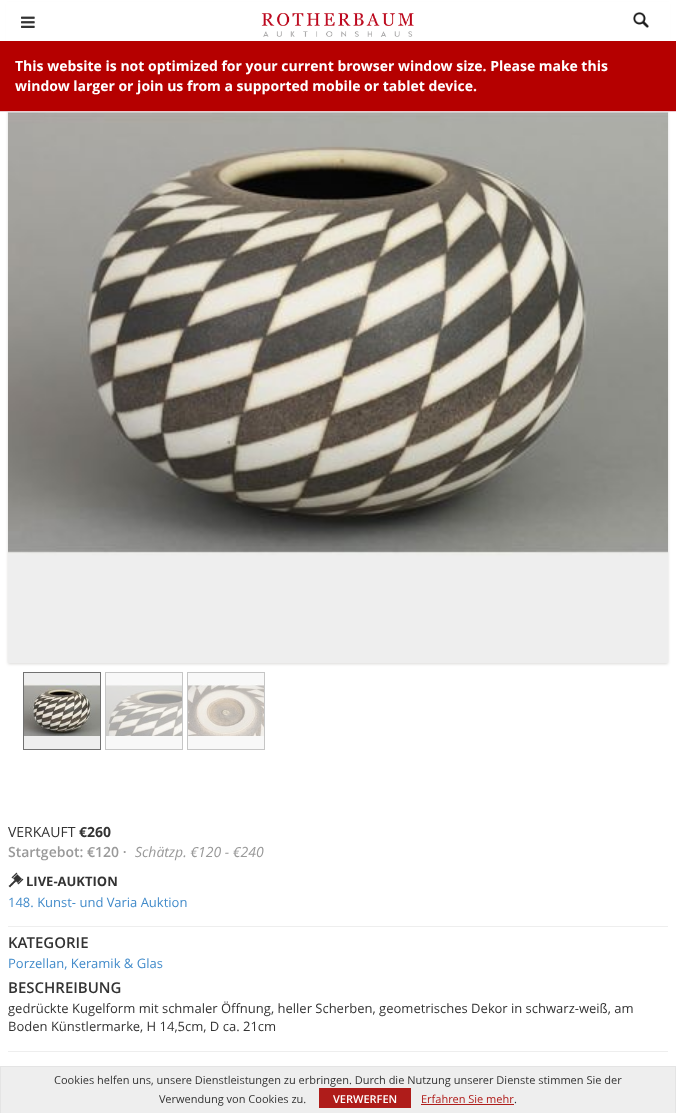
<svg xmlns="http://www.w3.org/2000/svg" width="676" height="1113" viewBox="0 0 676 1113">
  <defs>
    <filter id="blur1" x="-50%" y="-200%" width="200%" height="500%"><feGaussianBlur stdDeviation="1.5"/></filter>
  </defs>
  <rect width="100%" height="100%" fill="#ffffff"/>
  <rect x="8" y="4" width="660" height="660" fill="#dad9d7" filter="url(#blur1)"/>
  <rect x="6" y="2" width="664" height="39" fill="#ffffff"/>
  <image x="21" y="16" width="14" height="12" href="img1.png"/>
  <image x="261" y="13" width="153" height="24" href="img2.png"/>
  <image x="633" y="12" width="16" height="16" href="img3.png"/>
  <rect x="0" y="41" width="676" height="70" fill="#b50000"/>
  <rect x="0" y="111" width="676" height="1" fill="#ebccd1"/>
  <text x="15" y="71" font-family="Open Sans" font-size="14" font-weight="bold" fill="#ffffff">This website is not optimized for your current browser window size. Please make this</text>
  <text x="15" y="91" font-family="Open Sans" font-size="14" font-weight="bold" fill="#ffffff">window larger or join us from a supported mobile or tablet device.</text>
  <image x="8" y="112" width="660" height="551" href="img4.png"/>
  <rect x="23.5" y="672.5" width="77" height="77" fill="none" stroke="#717171"/>
  <rect x="105.5" y="672.5" width="77" height="77" fill="none" stroke="#c6c6c6"/>
  <rect x="187.5" y="672.5" width="77" height="77" fill="none" stroke="#c6c6c6"/>
  <image x="24" y="673" width="76" height="76" href="img5.png"/>
  <image x="106" y="673" width="76" height="76" href="img6.png"/>
  <image x="188" y="673" width="76" height="76" href="img7.png"/>
  <text x="8" y="837" font-family="Open Sans" font-size="14" fill="#333333">VERKAUFT</text>
  <text x="79" y="837" font-family="Open Sans" font-size="14" font-weight="bold" fill="#333333">€260</text>
  <text x="8" y="857" font-family="Open Sans" font-size="14" font-weight="600" fill="#999999">Startgebot: €120 ·</text>
  <text x="135" y="857" font-family="Open Sans" font-size="14" font-style="italic" fill="#999999">Schätzp. €120 - €240</text>
  <image x="8" y="872" width="16" height="16" href="img8.png"/>
  <text x="26" y="886" font-family="Open Sans" font-size="13" font-weight="bold" fill="#333333">LIVE-AUKTION</text>
  <text x="8" y="907" font-family="Open Sans" font-size="13" fill="#428bca">148. Kunst- und Varia Auktion</text>
  <rect x="8" y="926" width="660" height="1" fill="#eeeeee"/>
  <text x="8" y="948" font-family="Open Sans" font-size="15" font-weight="600" fill="#333333">KATEGORIE</text>
  <text x="8" y="968" font-family="Open Sans" font-size="13" fill="#428bca">Porzellan, Keramik &amp; Glas</text>
  <text x="8" y="993" font-family="Open Sans" font-size="15" font-weight="600" fill="#333333">BESCHREIBUNG</text>
  <text x="8" y="1013" font-family="Open Sans" font-size="13" fill="#333333">gedrückte Kugelform mit schmaler Öffnung, heller Scherben, geometrisches Dekor in schwarz-weiß, am</text>
  <text x="8" y="1031" font-family="Open Sans" font-size="13" fill="#333333">Boden Künstlermarke, H 14,5cm, D ca. 21cm</text>
  <rect x="8" y="1051" width="660" height="1" fill="#eeeeee"/>
  <rect x="1" y="1067" width="674" height="46" fill="#eeeeee"/>
  <rect x="0" y="1066" width="676" height="1" fill="#e4e4e4"/>
  <rect x="675" y="1066" width="1" height="47" fill="#e4e4e4"/>
  <rect x="0" y="1066" width="1" height="47" fill="#e4e4e4"/>
  <text x="54" y="1084" font-family="Open Sans" font-size="11" fill="#333333">Cookies helfen uns, unsere Dienstleistungen zu erbringen. Durch die Nutzung unserer Dienste stimmen Sie der</text>
  <text x="159" y="1103" font-family="Open Sans" font-size="11" fill="#333333">Verwendung von Cookies zu.</text>
  <rect x="319" y="1088" width="92" height="20" fill="#af1c1a"/>
  <text x="333" y="1103" font-family="Open Sans" font-size="11" font-weight="600" fill="#ffffff">VERWERFEN</text>
  <text x="421" y="1103" font-family="Open Sans" font-size="11" fill="#af1c1a">Erfahren Sie mehr</text>
  <rect x="421" y="1104" width="93" height="1" fill="#af1c1a"/>
  <text x="514" y="1103" font-family="Open Sans" font-size="11" fill="#333333">.</text>
</svg>
